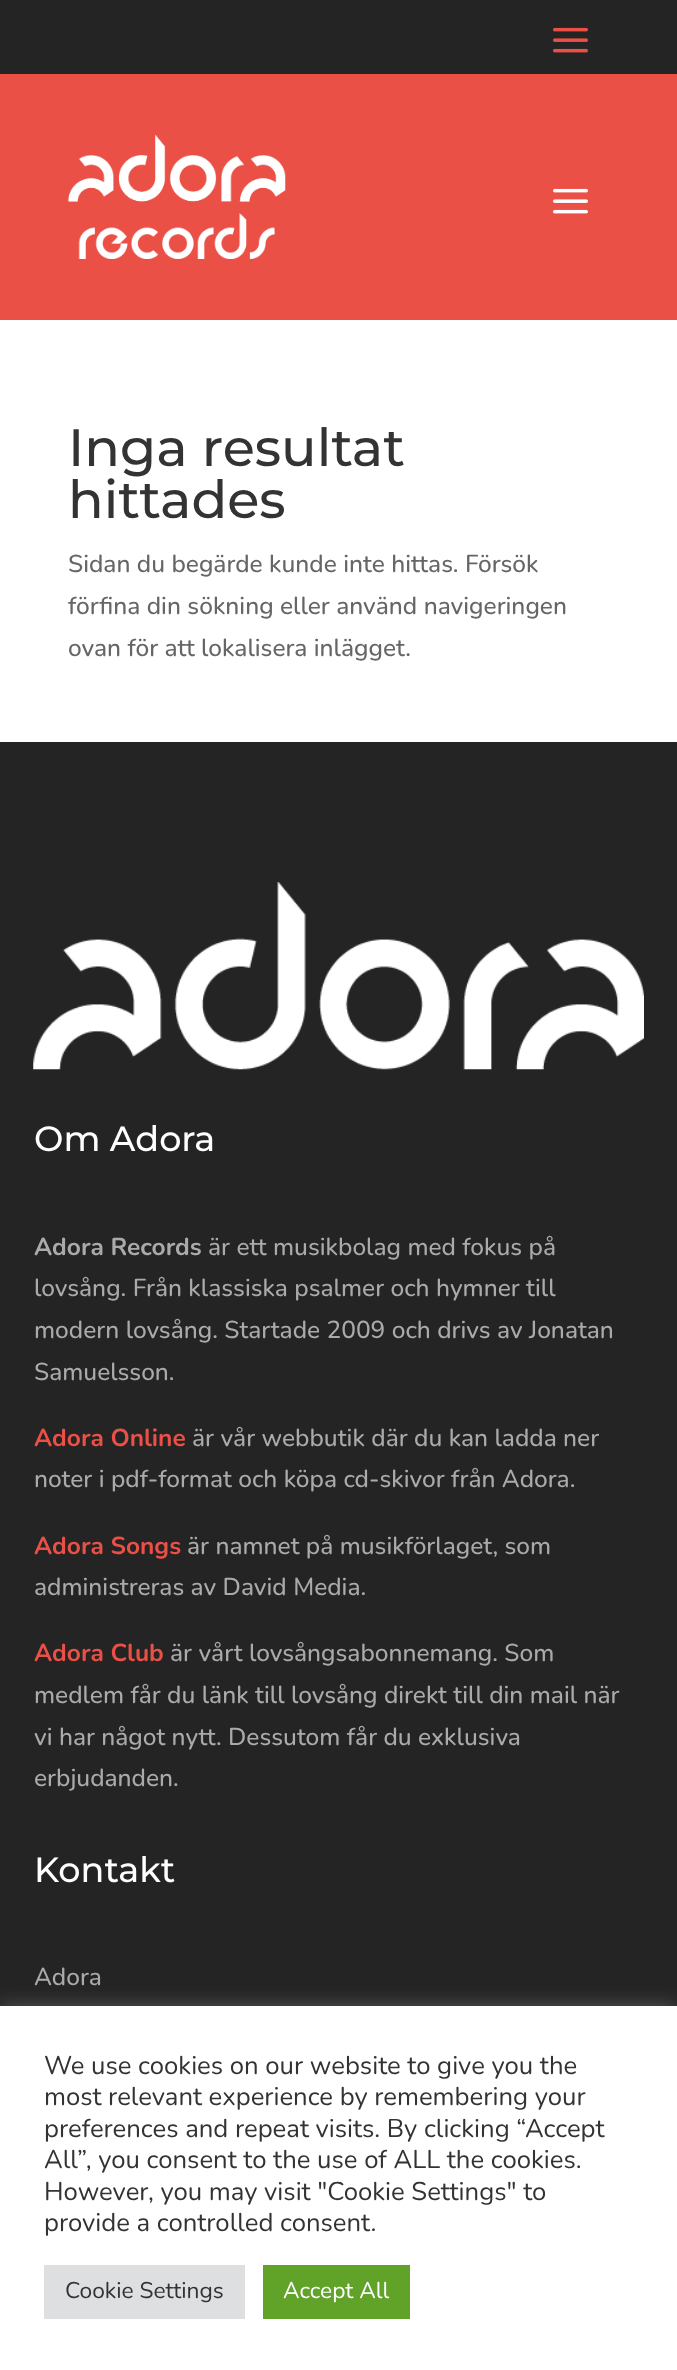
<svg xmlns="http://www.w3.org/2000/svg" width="677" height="2370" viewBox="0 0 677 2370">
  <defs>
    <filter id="blur1" x="-50%" y="-200%" width="200%" height="500%"><feGaussianBlur stdDeviation="9"/></filter>
  </defs>
  <rect width="100%" height="100%" fill="#ffffff"/>
  <rect x="0" y="0" width="677" height="74" fill="#242424"/>
  <image x="553" y="27" width="35" height="26" href="img1.png"/>
  <rect x="0" y="74" width="677" height="246" fill="#ea5046"/>
  <image x="68" y="134" width="218" height="125" href="img2.png"/>
  <image x="553" y="188" width="35" height="26" href="img3.png"/>
  <text x="68" y="466" font-family="Montserrat" font-size="52.5" font-weight="500" fill="#333333">Inga resultat</text>
  <text x="68" y="518" font-family="Montserrat" font-size="52.5" font-weight="500" fill="#333333">hittades</text>
  <text x="68" y="572" font-family="Nunito" font-size="24.5" font-weight="500" fill="#666666">Sidan du begärde kunde inte hittas. Försök</text>
  <text x="68" y="614" font-family="Nunito" font-size="24.5" font-weight="500" fill="#666666">förfina din sökning eller använd navigeringen</text>
  <text x="68" y="656" font-family="Nunito" font-size="24.5" font-weight="500" fill="#666666">ovan för att lokalisera inlägget.</text>
  <rect x="0" y="742" width="677" height="1264" fill="#242424"/>
  <image x="33" y="882" width="611" height="188" href="img4.png"/>
  <text x="34" y="1151" font-family="Montserrat" font-size="35" font-weight="500" fill="#ffffff">Om Adora</text>
  <text x="34" y="1255" font-family="Nunito" font-size="24.5" font-weight="bold" fill="#aaaaaa">Adora Records</text>
  <text x="208" y="1255" font-family="Nunito" font-size="24.5" font-weight="500" fill="#aaaaaa">är ett musikbolag med fokus på</text>
  <text x="34" y="1296" font-family="Nunito" font-size="24.5" font-weight="500" fill="#aaaaaa">lovsång. Från klassiska psalmer och hymner till</text>
  <text x="34" y="1338" font-family="Nunito" font-size="24.5" font-weight="500" fill="#aaaaaa">modern lovsång. Startade 2009 och drivs av Jonatan</text>
  <text x="34" y="1380" font-family="Nunito" font-size="24.5" font-weight="500" fill="#aaaaaa">Samuelsson.</text>
  <text x="34" y="1446" font-family="Nunito" font-size="24.5" font-weight="bold" fill="#ea5046">Adora Online</text>
  <text x="192" y="1446" font-family="Nunito" font-size="24.5" font-weight="500" fill="#aaaaaa">är vår webbutik där du kan ladda ner</text>
  <text x="34" y="1487" font-family="Nunito" font-size="24.5" font-weight="500" fill="#aaaaaa">noter i pdf-format och köpa cd-skivor från Adora.</text>
  <text x="34" y="1554" font-family="Nunito" font-size="24.5" font-weight="bold" fill="#ea5046">Adora Songs</text>
  <text x="187" y="1554" font-family="Nunito" font-size="24.5" font-weight="500" fill="#aaaaaa">är namnet på musikförlaget, som</text>
  <text x="34" y="1595" font-family="Nunito" font-size="24.5" font-weight="500" fill="#aaaaaa">administreras av David Media.</text>
  <text x="34" y="1661" font-family="Nunito" font-size="24.5" font-weight="bold" fill="#ea5046">Adora Club</text>
  <text x="170" y="1661" font-family="Nunito" font-size="24.5" font-weight="500" fill="#aaaaaa">är vårt lovsångsabonnemang. Som</text>
  <text x="34" y="1703" font-family="Nunito" font-size="24.5" font-weight="500" fill="#aaaaaa">medlem får du länk till lovsång direkt till din mail när</text>
  <text x="34" y="1745" font-family="Nunito" font-size="24.5" font-weight="500" fill="#aaaaaa">vi har något nytt. Dessutom får du exklusiva</text>
  <text x="34" y="1786" font-family="Nunito" font-size="24.5" font-weight="500" fill="#aaaaaa">erbjudanden.</text>
  <text x="34" y="1882" font-family="Montserrat" font-size="35" font-weight="500" fill="#ffffff">Kontakt</text>
  <text x="34" y="1985" font-family="Nunito" font-size="24.5" font-weight="500" fill="#aaaaaa">Adora</text>
  <rect x="0" y="2004" width="677" height="366" fill="#acabab" fill-opacity="0.3" filter="url(#blur1)"/>
  <rect x="0" y="2006" width="677" height="364" fill="#ffffff"/>
  <text x="44" y="2074" font-family="Nunito" font-size="25.7" fill="#333333">We use cookies on our website to give you the</text>
  <text x="44" y="2105" font-family="Nunito" font-size="25.7" fill="#333333">most relevant experience by remembering your</text>
  <text x="44" y="2137" font-family="Nunito" font-size="25.7" fill="#333333">preferences and repeat visits. By clicking “Accept</text>
  <text x="44" y="2168" font-family="Nunito" font-size="25.7" fill="#333333">All”, you consent to the use of ALL the cookies.</text>
  <text x="44" y="2200" font-family="Nunito" font-size="25.7" fill="#333333">However, you may visit "Cookie Settings" to</text>
  <text x="44" y="2231" font-family="Nunito" font-size="25.7" fill="#333333">provide a controlled consent.</text>
  <rect x="44" y="2265" width="201" height="54" fill="#dedfe0"/>
  <text x="65" y="2298" font-family="Nunito" font-size="22.75" fill="#333333">Cookie Settings</text>
  <rect x="263" y="2265" width="147" height="54" fill="#61a229"/>
  <text x="283" y="2298" font-family="Nunito" font-size="22.75" fill="#ffffff">Accept All</text>
</svg>
